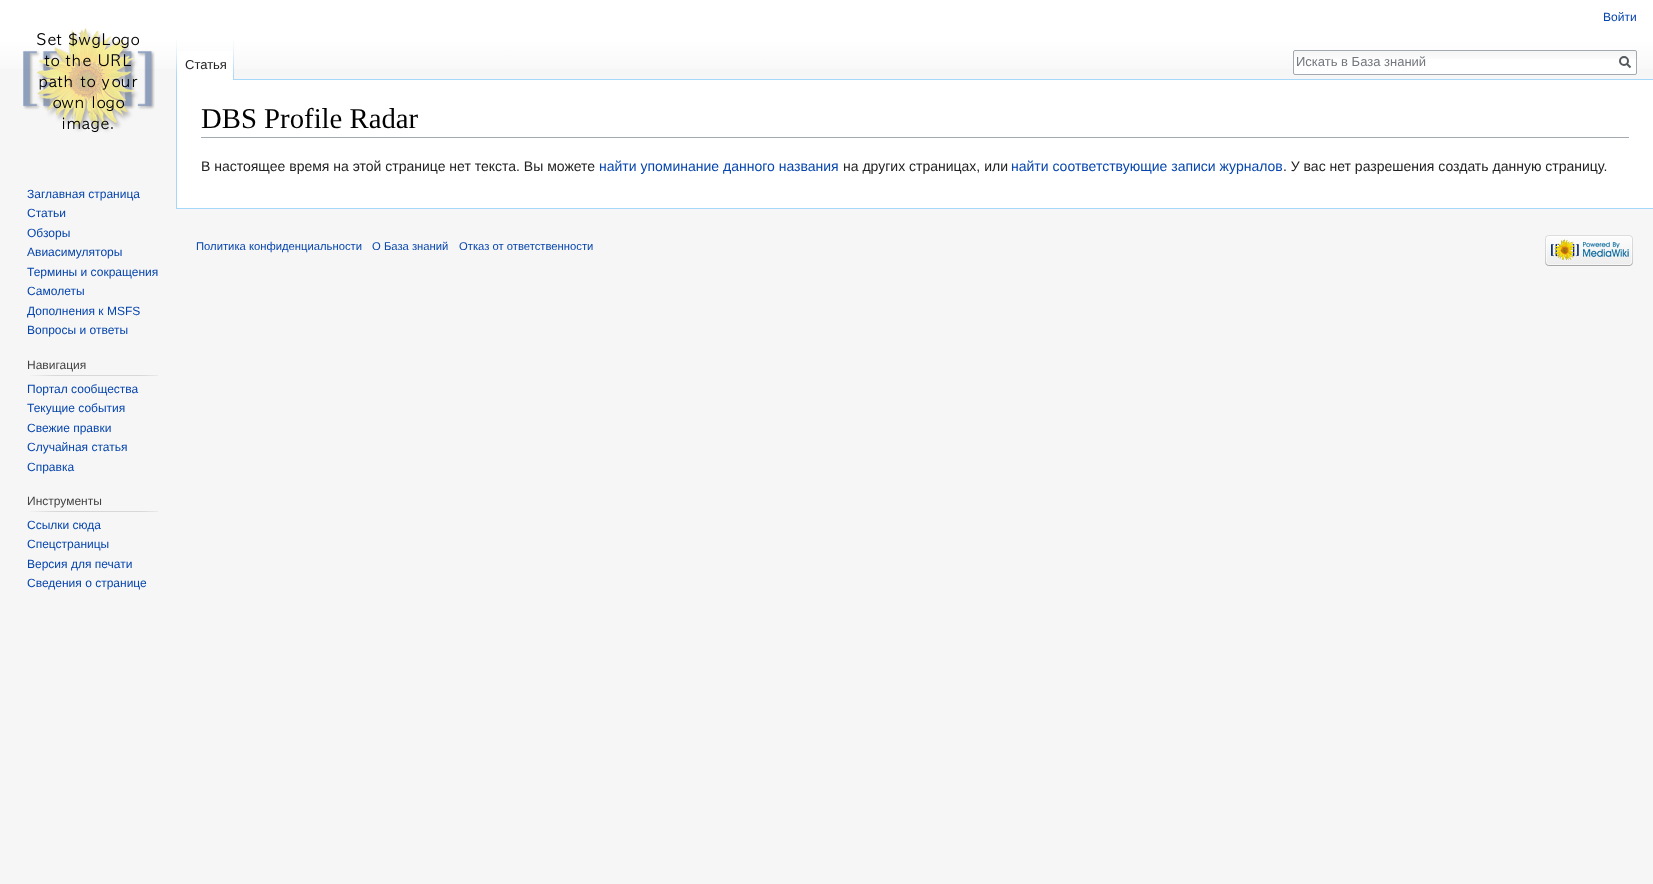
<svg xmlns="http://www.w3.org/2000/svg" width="1653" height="884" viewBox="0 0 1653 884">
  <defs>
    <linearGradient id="g1" gradientUnits="userSpaceOnUse" x1="827" y1="0" x2="827" y2="80"><stop offset="0.5" stop-color="#ffffff"/><stop offset="1" stop-color="#f6f6f6"/></linearGradient>
  </defs>
  <rect width="100%" height="100%" fill="#f6f6f6"/>
  <rect x="0" y="0" width="1653" height="69" fill="url(#g1)"/>
  <text x="1603" y="21" font-family="Liberation Sans" font-size="12" fill="#0645ad">Войти</text>
  <image x="176" y="40" width="1" height="39" href="img1.png"/>
  <rect x="177" y="51" width="56" height="29" fill="#ffffff"/>
  <image x="233" y="40" width="1" height="40" href="img2.png"/>
  <text x="185" y="69" font-family="Liberation Sans" font-size="13" fill="#222222">Статья</text>
  <rect x="1293" y="50" width="344" height="25" rx="2" fill="#ffffff"/>
  <image x="1293" y="51" width="344" height="8" href="img3.png"/>
  <rect x="1293.5" y="50.5" width="343" height="24" rx="1.5" fill="none" stroke="#a2a9b1"/>
  <text x="1296" y="66" font-family="Liberation Sans" font-size="13" fill="#72777d">Искать в База знаний</text>
  <path d="M1630.5 67.5L1626.5 63.5" fill="none" stroke="#54595d" stroke-width="2"/>
  <circle cx="1624" cy="61" r="4" fill="none" stroke="#54595d" stroke-width="2"/>
  <image x="23" y="28" width="132" height="105" href="img4.png"/>
  <text x="27" y="198" font-family="Liberation Sans" font-size="12" fill="#0645ad">Заглавная страница</text>
  <text x="27" y="217" font-family="Liberation Sans" font-size="12" fill="#0645ad">Статьи</text>
  <text x="27" y="237" font-family="Liberation Sans" font-size="12" fill="#0645ad">Обзоры</text>
  <text x="27" y="256" font-family="Liberation Sans" font-size="12" fill="#0645ad">Авиасимуляторы</text>
  <text x="27" y="276" font-family="Liberation Sans" font-size="12" fill="#0645ad">Термины и сокращения</text>
  <text x="27" y="295" font-family="Liberation Sans" font-size="12" fill="#0645ad">Самолеты</text>
  <text x="27" y="315" font-family="Liberation Sans" font-size="12" fill="#0645ad">Дополнения к MSFS</text>
  <text x="27" y="334" font-family="Liberation Sans" font-size="12" fill="#0645ad">Вопросы и ответы</text>
  <text x="27" y="369" font-family="Liberation Sans" font-size="12" fill="#444444">Навигация</text>
  <image x="30" y="375" width="128" height="1" href="img5.png"/>
  <text x="27" y="393" font-family="Liberation Sans" font-size="12" fill="#0645ad">Портал сообщества</text>
  <text x="27" y="412" font-family="Liberation Sans" font-size="12" fill="#0645ad">Текущие события</text>
  <text x="27" y="432" font-family="Liberation Sans" font-size="12" fill="#0645ad">Свежие правки</text>
  <text x="27" y="451" font-family="Liberation Sans" font-size="12" fill="#0645ad">Случайная статья</text>
  <text x="27" y="471" font-family="Liberation Sans" font-size="12" fill="#0645ad">Справка</text>
  <text x="27" y="505" font-family="Liberation Sans" font-size="12" fill="#444444">Инструменты</text>
  <image x="30" y="511" width="128" height="1" href="img5.png"/>
  <text x="27" y="529" font-family="Liberation Sans" font-size="12" fill="#0645ad">Ссылки сюда</text>
  <text x="27" y="548" font-family="Liberation Sans" font-size="12" fill="#0645ad">Спецстраницы</text>
  <text x="27" y="568" font-family="Liberation Sans" font-size="12" fill="#0645ad">Версия для печати</text>
  <text x="27" y="587" font-family="Liberation Sans" font-size="12" fill="#0645ad">Сведения о странице</text>
  <rect x="177" y="80" width="1476" height="128" fill="#ffffff"/>
  <rect x="234" y="79" width="1419" height="1" fill="#a7d7f9"/>
  <rect x="176" y="208" width="1477" height="1" fill="#a7d7f9"/>
  <rect x="176" y="79" width="1" height="130" fill="#a7d7f9"/>
  <rect x="201" y="137" width="1428" height="1" fill="#a2a9b1"/>
  <text x="201" y="128" font-family="Liberation Serif" font-size="28.75" fill="#000000">DBS Profile Radar</text>
  <text x="201" y="171" font-family="Liberation Sans" font-size="14" fill="#222222">В настоящее время на этой странице нет текста. Вы можете</text>
  <text x="599" y="171" font-family="Liberation Sans" font-size="14" fill="#0645ad">найти упоминание данного названия</text>
  <text x="843" y="171" font-family="Liberation Sans" font-size="14" fill="#222222">на других страницах, или</text>
  <text x="1011" y="171" font-family="Liberation Sans" font-size="14" fill="#0645ad">найти соответствующие записи журналов</text>
  <text x="1283" y="171" font-family="Liberation Sans" font-size="14" fill="#222222">. У вас нет разрешения создать данную страницу.</text>
  <text x="196" y="250" font-family="Liberation Sans" font-size="11.25" fill="#0645ad">Политика конфиденциальности</text>
  <text x="372" y="250" font-family="Liberation Sans" font-size="11.25" fill="#0645ad">О База знаний</text>
  <text x="459" y="250" font-family="Liberation Sans" font-size="11.25" fill="#0645ad">Отказ от ответственности</text>
  <image x="1545" y="235" width="88" height="31" href="img6.png"/>
</svg>
